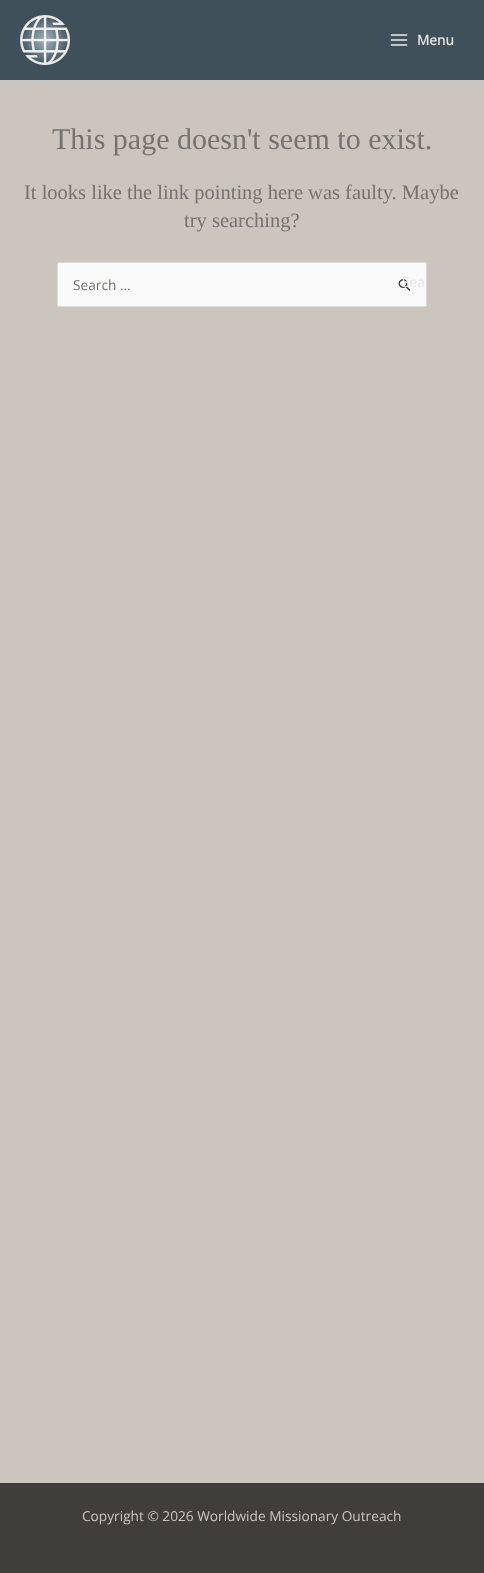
<svg xmlns="http://www.w3.org/2000/svg" width="484" height="1573" viewBox="0 0 484 1573">
  <rect width="100%" height="100%" fill="#ccc5bd"/>
  <rect x="0" y="0" width="484" height="80" fill="#3f505a"/>
  <image x="20" y="15" width="50" height="50" href="img1.png"/>
  <image x="390" y="34" width="18" height="12" href="img2.png"/>
  <text x="417" y="45" font-family="Open Sans" font-size="13.7" font-weight="bold" fill="#e5e3de">Menu</text>
  <text x="52" y="149" font-family="Liberation Serif" font-size="30" fill="#747370">This page doesn't seem to exist.</text>
  <text x="24" y="199" font-family="Liberation Serif" font-size="20.5" fill="#747370">It looks like the link pointing here was faulty. Maybe</text>
  <text x="184" y="227" font-family="Liberation Serif" font-size="20.5" fill="#747370">try searching?</text>
  <rect x="57.5" y="262.5" width="369" height="44" rx="1.5" fill="#fafafa" stroke="#dddddd"/>
  <text x="73" y="290" font-family="Open Sans" font-size="13.7" fill="#747370">Search …</text>
  <image x="398" y="279" width="12" height="12" href="img3.png"/>
  <text x="402" y="287" font-family="Open Sans" font-size="13.7" fill="#e4e4e4">Sea</text>
  <rect x="0" y="1483" width="484" height="90" fill="#3f3e3b"/>
  <text x="82" y="1521" font-family="Open Sans" font-size="13.7" fill="#ccc5bd">Copyright © 2026 Worldwide Missionary Outreach</text>
</svg>
